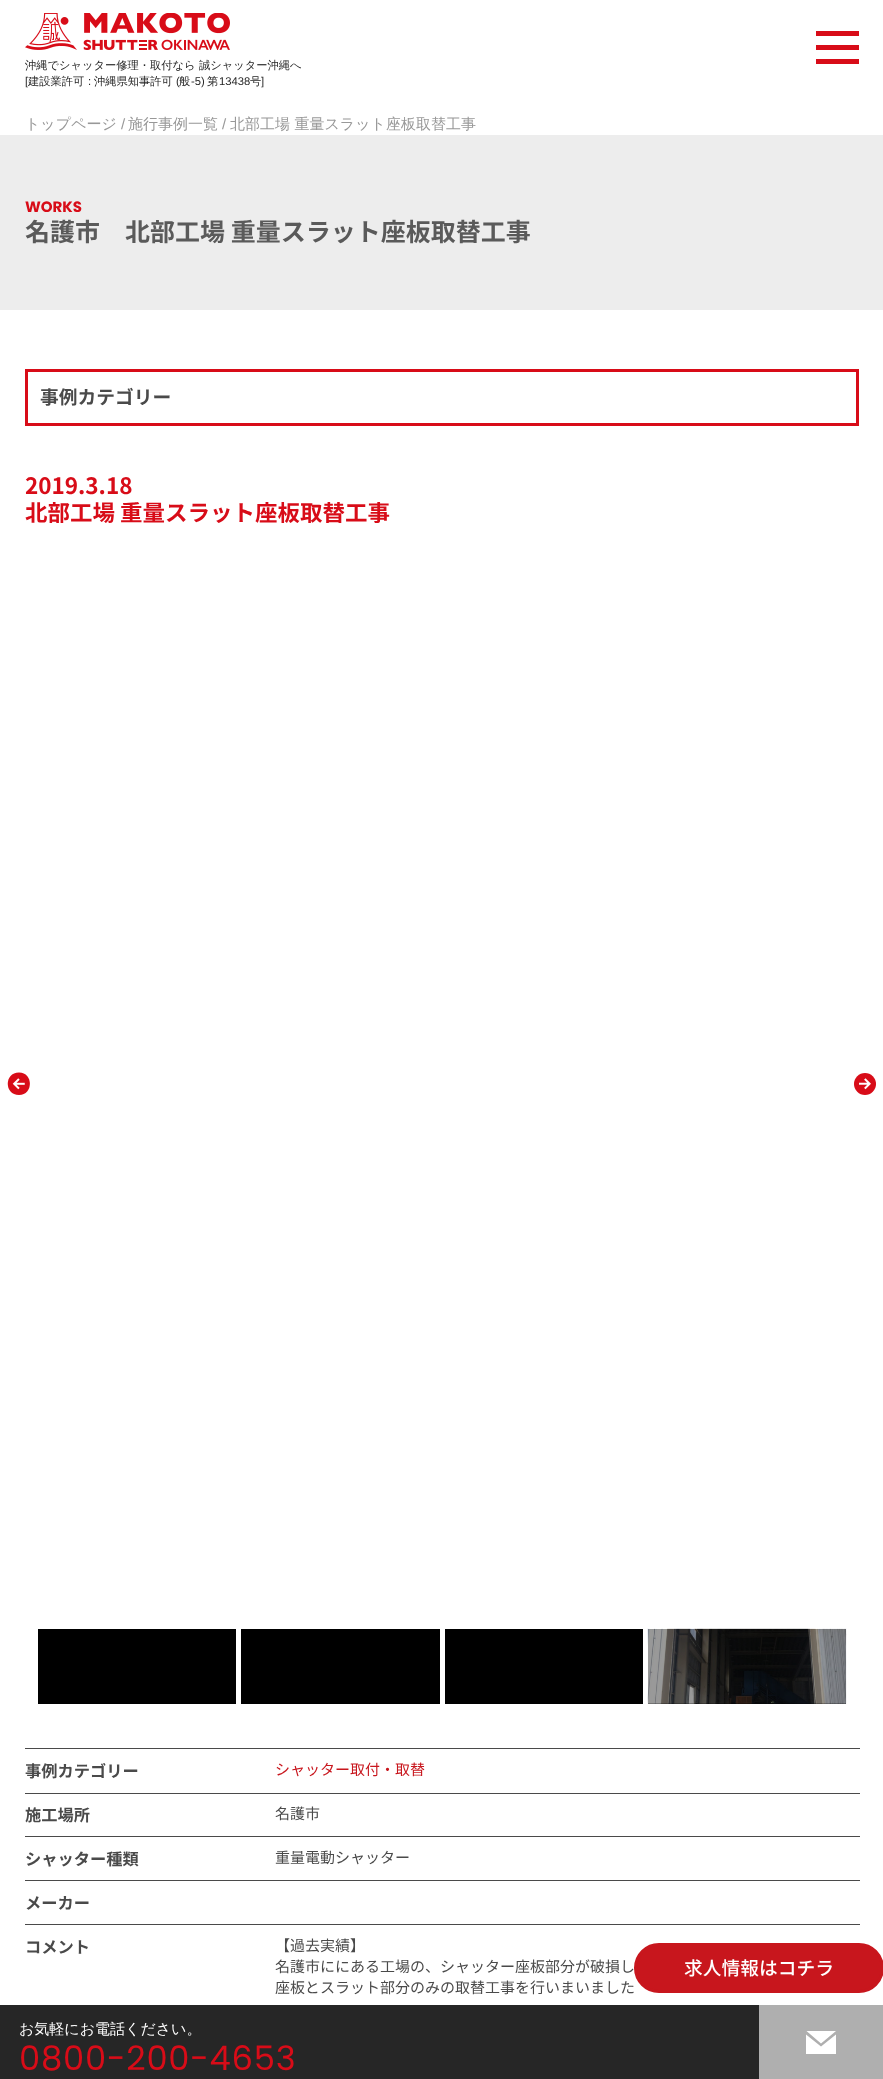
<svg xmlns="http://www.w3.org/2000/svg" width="883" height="2079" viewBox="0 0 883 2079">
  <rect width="100%" height="100%" fill="#ffffff"/>
  <rect x="816" y="31" width="43" height="5" fill="#d80c18"/>
  <rect x="816" y="45" width="43" height="5" fill="#d80c18"/>
  <rect x="816" y="59" width="43" height="5" fill="#d80c18"/>
  <image x="25" y="13" width="205" height="37" href="img1.png"/>
  <text x="25" y="69" font-family="WenQuanYi Zen Hei" font-size="11.25" font-weight="500" fill="#262626">沖縄でシャッター修理・取付なら 誠シャッター沖縄へ</text>
  <text x="25" y="85" font-family="Liberation Sans" font-size="11.25" fill="#262626">[</text>
  <text x="28" y="85" font-family="WenQuanYi Zen Hei" font-size="11.25" font-weight="500" fill="#262626">建設業許可</text>
  <text x="94" y="85" font-family="WenQuanYi Zen Hei" font-size="11.25" font-weight="500" fill="#262626">沖縄県知事許可</text>
  <text x="207" y="85" font-family="WenQuanYi Zen Hei" font-size="11.25" font-weight="500" fill="#262626">第</text>
  <text x="88" y="85" font-family="Liberation Sans" font-size="11.25" fill="#262626">:</text>
  <text x="176" y="85" font-family="Liberation Sans" font-size="11.25" fill="#262626">(</text>
  <text x="179" y="85" font-family="WenQuanYi Zen Hei" font-size="11.25" font-weight="500" fill="#262626">般</text>
  <text x="191" y="85" font-family="Liberation Sans" font-size="11.25" fill="#262626">-5)</text>
  <text x="219" y="85" font-family="Liberation Sans" font-size="11.25" fill="#262626">13438</text>
  <text x="250" y="85" font-family="WenQuanYi Zen Hei" font-size="11.25" font-weight="500" fill="#262626">号</text>
  <text x="261" y="85" font-family="Liberation Sans" font-size="11.25" fill="#262626">]</text>
  <rect x="635.5" y="1944.5" width="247" height="47" rx="23.5" fill="#c8161d" stroke="#c8161d" stroke-width="3"/>
  <text x="684" y="1975" font-family="Noto Sans JP" font-size="18.75" font-weight="500" fill="#ffffff">求人情報はコチラ</text>
  <text x="25" y="129" font-family="WenQuanYi Zen Hei" font-size="15" font-weight="500" fill="#989898">トップページ</text>
  <text x="121" y="129" font-family="Liberation Sans" font-size="15" fill="#989898">/</text>
  <text x="128" y="129" font-family="WenQuanYi Zen Hei" font-size="15" font-weight="500" fill="#989898">施行事例一覧</text>
  <text x="222" y="129" font-family="Liberation Sans" font-size="15" fill="#989898">/</text>
  <text x="230" y="129" font-family="WenQuanYi Zen Hei" font-size="15" font-weight="500" fill="#989898">北部工場 重量スラット座板取替工事</text>
  <rect x="0" y="135" width="883" height="175" fill="#ededed"/>
  <text x="25" y="212" font-family="Poppins" font-size="15" font-weight="bold" fill="#d80c18">WORKS</text>
  <text x="25" y="241" font-family="Noto Sans JP" font-size="25" font-weight="bold" fill="#5a5a5a">名護市　北部工場 重量スラット座板取替工事</text>
  <rect x="26.5" y="370.5" width="831" height="54" fill="none" stroke="#d80c18" stroke-width="3"/>
  <text x="40" y="404" font-family="Noto Sans JP" font-size="18.75" font-weight="bold" fill="#4a4a4a">事例カテゴリー</text>
  <text x="25" y="494" font-family="Noto Sans JP" font-size="22.5" font-weight="bold" fill="#d80c18">2019.3.18</text>
  <text x="25" y="521" font-family="Noto Sans JP" font-size="22.5" font-weight="bold" fill="#d80c18">北部工場 重量スラット座板取替工事</text>
  <path d="M19 1095C4 1095 4 1072.5 19 1072.5C33.5 1072.5 33.5 1095 19 1095Z" fill="#d80c18"/>
  <image x="12" y="1078" width="13" height="12" href="img2.png"/>
  <circle cx="865" cy="1084" r="11" fill="#d80c18"/>
  <image x="859" y="1078" width="12" height="12" href="img3.png"/>
  <rect x="38" y="1629" width="198" height="75" fill="#000000"/>
  <rect x="241" y="1629" width="199" height="75" fill="#000000"/>
  <rect x="445" y="1629" width="198" height="75" fill="#000000"/>
  <rect x="648" y="1629" width="198" height="75" fill="#000000"/>
  <image x="647" y="1628" width="200" height="76" href="img4.png"/>
  <rect x="25" y="1748" width="835" height="1" fill="#4a4a4a"/>
  <text x="25" y="1777" font-family="Noto Sans JP" font-size="16.25" font-weight="bold" fill="#4a4a4a">事例カテゴリー</text>
  <text x="275" y="1775" font-family="Noto Sans JP" font-size="15" fill="#c8161d">シャッター取付・取替</text>
  <rect x="25" y="1793" width="835" height="1" fill="#4a4a4a"/>
  <text x="25" y="1821" font-family="Noto Sans JP" font-size="16.25" font-weight="bold" fill="#4a4a4a">施工場所</text>
  <text x="275" y="1819" font-family="Noto Sans JP" font-size="15" fill="#4a4a4a">名護市</text>
  <rect x="25" y="1836" width="835" height="1" fill="#4a4a4a"/>
  <text x="25" y="1865" font-family="Noto Sans JP" font-size="16.25" font-weight="bold" fill="#4a4a4a">シャッター種類</text>
  <text x="275" y="1863" font-family="Noto Sans JP" font-size="15" fill="#4a4a4a">重量電動シャッター</text>
  <rect x="25" y="1880" width="835" height="1" fill="#4a4a4a"/>
  <text x="25" y="1909" font-family="Noto Sans JP" font-size="16.25" font-weight="bold" fill="#4a4a4a">メーカー</text>
  <rect x="25" y="1924" width="835" height="1" fill="#4a4a4a"/>
  <text x="25" y="1953" font-family="Noto Sans JP" font-size="16.25" font-weight="bold" fill="#4a4a4a">コメント</text>
  <text x="275" y="1951" font-family="Noto Sans JP" font-size="15" fill="#4a4a4a">【過去実績】</text>
  <text x="275" y="1972" font-family="Noto Sans JP" font-size="15" fill="#4a4a4a">名護市ににある工場の、シャッター座板部分が破損し</text>
  <text x="275" y="1993" font-family="Noto Sans JP" font-size="15" fill="#4a4a4a">座板とスラット部分のみの取替工事を行いまいました</text>
  <rect x="0" y="2005" width="759" height="74" fill="#262626"/>
  <text x="19" y="2034" font-family="WenQuanYi Zen Hei" font-size="15" font-weight="500" fill="#ffffff">お気軽にお電話ください。</text>
  <rect x="759" y="2005" width="124" height="74" fill="#afafaf"/>
  <path d="M821 2043.5L806.5 2031H836ZM821 2046.5L806 2034.5V2054H836V2034.5Z" fill="#ffffff"/>
  <text x="19" y="2070" font-family="Poppins" font-size="33.75" letter-spacing="0.75" fill="#d80c18">0800-200-4653</text>
</svg>
